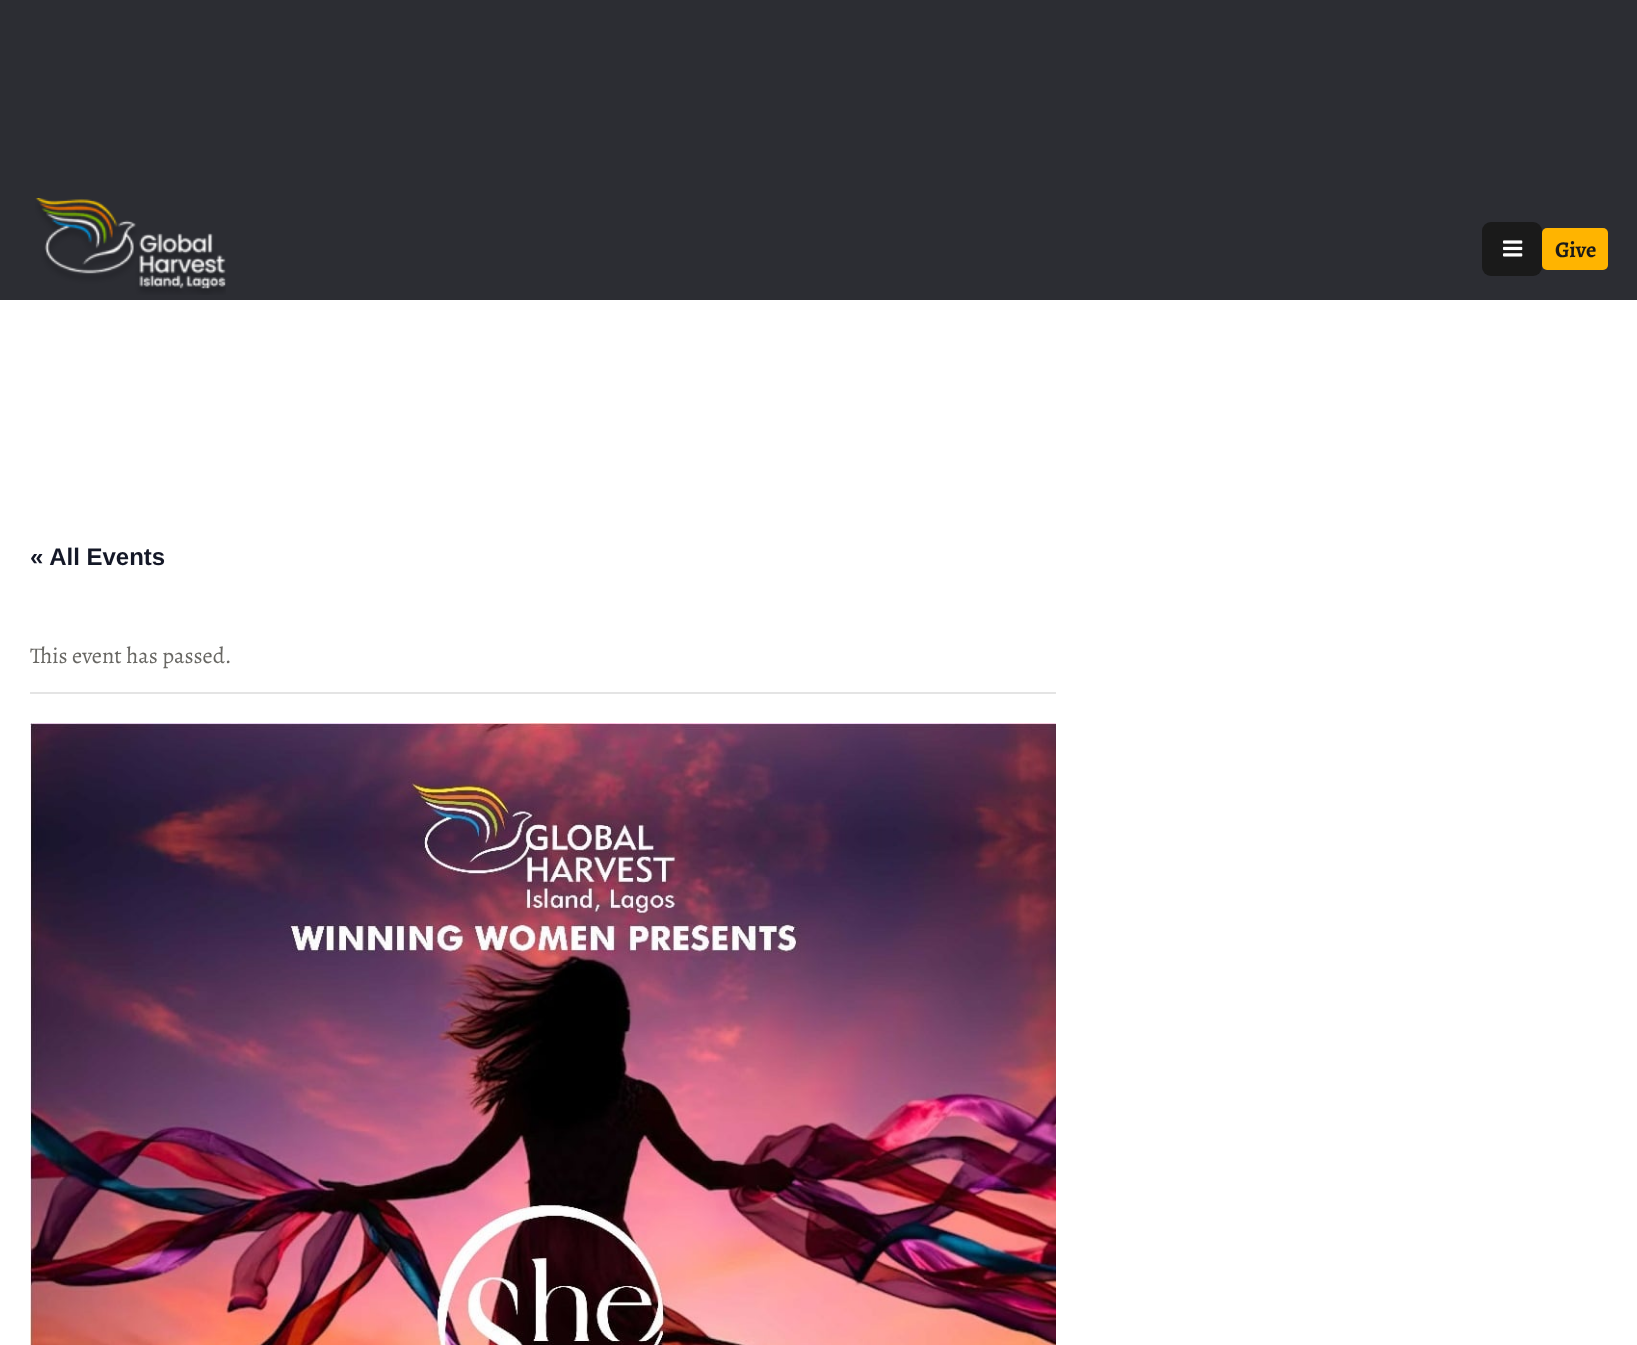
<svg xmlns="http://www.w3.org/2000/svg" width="1637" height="1345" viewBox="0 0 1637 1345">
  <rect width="100%" height="100%" fill="#ffffff"/>
  <rect x="0" y="0" width="1637" height="300" fill="#2c2d33"/>
  <image x="35" y="198" width="191" height="97" href="img1.png"/>
  <rect x="1482" y="222" width="60" height="54" rx="9" fill="#1a1a1a"/>
  <image x="1503" y="240" width="20" height="17" href="img2.png"/>
  <rect x="1542" y="228" width="66" height="42" rx="5" fill="#ffb400"/>
  <text x="1555" y="257" font-family="Alegreya" font-size="22.5" font-weight="bold" fill="#1a1a1a">Give</text>
  <text x="30" y="565" font-family="Liberation Sans" font-size="24" font-weight="bold" fill="#141827">« All Events</text>
  <rect x="30" y="692" width="1026" height="2" fill="#e4e4e4"/>
  <text x="30" y="663" font-family="Alegreya" font-size="22.5" fill="#686763">This event has passed.</text>
  <image x="30" y="723" width="1026" height="622" href="img3.png"/>
</svg>
